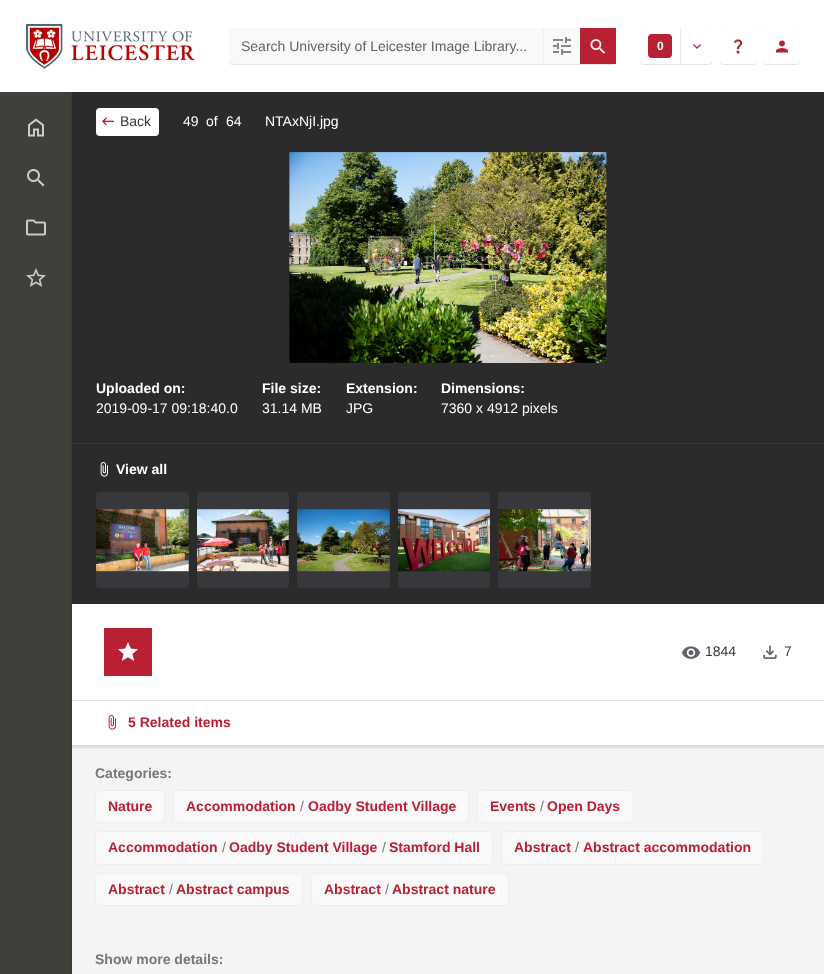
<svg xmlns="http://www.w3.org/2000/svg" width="824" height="974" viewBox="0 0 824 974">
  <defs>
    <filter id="blur1" x="-50%" y="-200%" width="200%" height="500%"><feGaussianBlur stdDeviation="0.5"/></filter>
    <linearGradient id="g1" gradientUnits="userSpaceOnUse" x1="448" y1="745" x2="448" y2="749"><stop offset="0" stop-color="#17171c" stop-opacity="0.2"/><stop offset="1" stop-color="#17171c" stop-opacity="0"/></linearGradient>
  </defs>
  <rect width="100%" height="100%" fill="#ffffff"/>
  <image x="26" y="24" width="169" height="45" href="img1.png"/>
  <rect x="229" y="29" width="387" height="36" rx="4" fill="#000000" fill-opacity="0.1" filter="url(#blur1)"/>
  <path d="M233 28H543V64H233C231 64 229 62 229 60V32C229 30 231 28 233 28Z" fill="#f9f9fa"/>
  <text x="241" y="51" font-family="Liberation Sans" font-size="14" fill="#61616a">Search University of Leicester Image Library...</text>
  <rect x="544" y="28" width="36" height="36" fill="#f9f9fa"/>
  <rect x="543" y="28" width="1" height="36" fill="#eeeef1"/>
  <image x="553" y="37" width="18" height="18" href="img2.png"/>
  <rect x="580" y="28" width="36" height="36" fill="#b92034"/>
  <image x="590" y="39" width="15" height="15" href="img3.png"/>
  <rect x="640" y="29" width="72" height="36" rx="4" fill="#000000" fill-opacity="0.1" filter="url(#blur1)"/>
  <path d="M644 28H680V64H644C642 64 640 62 640 60V32C640 30 642 28 644 28Z" fill="#ffffff"/>
  <rect x="648" y="34" width="24" height="24" rx="4" fill="#b92034"/>
  <text x="657" y="50" font-family="Liberation Sans" font-size="12" font-weight="bold" fill="#ffffff">0</text>
  <path d="M680 28H708C710 28 712 30 712 32V60C712 62 710 64 708 64H680Z" fill="#ffffff"/>
  <rect x="680" y="28" width="1" height="36" fill="#eaeaee"/>
  <image x="693" y="44" width="8" height="5" href="img4.png"/>
  <rect x="720" y="29" width="36" height="36" rx="4" fill="#000000" fill-opacity="0.1" filter="url(#blur1)"/>
  <rect x="720" y="28" width="36" height="36" rx="4" fill="#ffffff"/>
  <image x="734" y="39" width="9" height="15" href="img5.png"/>
  <rect x="764" y="29" width="36" height="36" rx="4" fill="#000000" fill-opacity="0.1" filter="url(#blur1)"/>
  <rect x="764" y="28" width="36" height="36" rx="4" fill="#ffffff"/>
  <image x="776" y="40" width="12" height="13" href="img6.png"/>
  <rect x="0" y="92" width="71" height="882" fill="#3d413a"/>
  <rect x="71" y="92" width="1" height="882" fill="#373b34"/>
  <image x="28" y="118" width="16" height="19" href="img7.png"/>
  <image x="27" y="169" width="18" height="18" href="img8.png"/>
  <image x="26" y="219" width="20" height="17" href="img9.png"/>
  <image x="26" y="268" width="20" height="19" href="img10.png"/>
  <rect x="72" y="92" width="752" height="512" fill="#2b2b2b"/>
  <rect x="96" y="108" width="63" height="28" rx="4" fill="#ffffff"/>
  <image x="102" y="117" width="12" height="9" href="img11.png"/>
  <text x="120" y="126" font-family="Liberation Sans" font-size="14" fill="#38383c">Back</text>
  <text x="183" y="126" font-family="Liberation Sans" font-size="14" fill="#ffffff">49</text>
  <text x="206" y="126" font-family="Liberation Sans" font-size="14" fill="#ffffff">of</text>
  <text x="226" y="126" font-family="Liberation Sans" font-size="14" fill="#ffffff">64</text>
  <text x="265" y="126" font-family="Liberation Sans" font-size="14" fill="#ffffff">NTAxNjI.jpg</text>
  <image x="289" y="152" width="318" height="211" href="img12.png"/>
  <text x="96" y="393" font-family="Liberation Sans" font-size="14" font-weight="bold" fill="#ffffff">Uploaded on:</text>
  <text x="96" y="413" font-family="Liberation Sans" font-size="14" fill="#ffffff">2019-09-17 09:18:40.0</text>
  <text x="262" y="393" font-family="Liberation Sans" font-size="14" font-weight="bold" fill="#ffffff">File size:</text>
  <text x="262" y="413" font-family="Liberation Sans" font-size="14" fill="#ffffff">31.14 MB</text>
  <text x="346" y="393" font-family="Liberation Sans" font-size="14" font-weight="bold" fill="#ffffff">Extension:</text>
  <text x="346" y="413" font-family="Liberation Sans" font-size="14" fill="#ffffff">JPG</text>
  <text x="441" y="393" font-family="Liberation Sans" font-size="14" font-weight="bold" fill="#ffffff">Dimensions:</text>
  <text x="441" y="413" font-family="Liberation Sans" font-size="14" fill="#ffffff">7360 x 4912 pixels</text>
  <rect x="72" y="443" width="752" height="1" fill="#38383c"/>
  <image x="100" y="462" width="8" height="15" href="img13.png"/>
  <text x="116" y="474" font-family="Liberation Sans" font-size="14" font-weight="bold" fill="#ffffff">View all</text>
  <rect x="96" y="492" width="93" height="96" rx="4" fill="#38383c"/>
  <image x="96" y="509" width="93" height="63" href="img14.png"/>
  <rect x="197" y="492" width="92" height="96" rx="4" fill="#38383c"/>
  <image x="197" y="509" width="92" height="63" href="img15.png"/>
  <rect x="297" y="492" width="93" height="96" rx="4" fill="#38383c"/>
  <image x="297" y="509" width="93" height="63" href="img16.png"/>
  <rect x="398" y="492" width="92" height="96" rx="4" fill="#38383c"/>
  <image x="398" y="509" width="92" height="63" href="img17.png"/>
  <rect x="498" y="492" width="93" height="96" rx="4" fill="#38383c"/>
  <image x="498" y="509" width="93" height="63" href="img18.png"/>
  <rect x="104" y="628" width="48" height="48" fill="#b92034"/>
  <image x="118" y="642" width="20" height="19" href="img19.png"/>
  <image x="681" y="646" width="20" height="13" href="img20.png"/>
  <text x="705" y="656" font-family="Liberation Sans" font-size="14" fill="#38383c">1844</text>
  <image x="763" y="645" width="14" height="14" href="img21.png"/>
  <text x="784" y="656" font-family="Liberation Sans" font-size="14" fill="#38383c">7</text>
  <rect x="72" y="700" width="752" height="1" fill="#e2e2e8"/>
  <image x="108" y="715" width="8" height="15" href="img22.png"/>
  <text x="128" y="727" font-family="Liberation Sans" font-size="14" font-weight="bold" fill="#b92034">5 Related items</text>
  <rect x="72" y="747" width="752" height="227" fill="#f4f4f5"/>
  <rect x="72" y="745" width="752" height="4" fill="url(#g1)"/>
  <text x="95" y="778" font-family="Liberation Sans" font-size="14" font-weight="bold" fill="#777777">Categories:</text>
  <rect x="95.5" y="790.5" width="69" height="32" rx="3.5" fill="#f9f9fa" stroke="#eeeef1"/>
  <text x="108" y="811" font-family="Liberation Sans" font-size="14" font-weight="bold" fill="#b92034">Nature</text>
  <rect x="173.5" y="790.5" width="295" height="32" rx="3.5" fill="#f9f9fa" stroke="#eeeef1"/>
  <text x="186" y="811" font-family="Liberation Sans" font-size="14" font-weight="bold" fill="#b92034">Accommodation</text>
  <text x="300" y="811" font-family="Liberation Sans" font-size="14" fill="#777777">/</text>
  <text x="308" y="811" font-family="Liberation Sans" font-size="14" font-weight="bold" fill="#b92034">Oadby Student Village</text>
  <rect x="477.5" y="790.5" width="156" height="32" rx="3.5" fill="#f9f9fa" stroke="#eeeef1"/>
  <text x="490" y="811" font-family="Liberation Sans" font-size="14" font-weight="bold" fill="#b92034">Events</text>
  <text x="540" y="811" font-family="Liberation Sans" font-size="14" fill="#777777">/</text>
  <text x="547" y="811" font-family="Liberation Sans" font-size="14" font-weight="bold" fill="#b92034">Open Days</text>
  <rect x="95.5" y="831.5" width="397" height="33" rx="3.5" fill="#f9f9fa" stroke="#eeeef1"/>
  <text x="108" y="852" font-family="Liberation Sans" font-size="14" font-weight="bold" fill="#b92034">Accommodation</text>
  <text x="222" y="852" font-family="Liberation Sans" font-size="14" fill="#777777">/</text>
  <text x="229" y="852" font-family="Liberation Sans" font-size="14" font-weight="bold" fill="#b92034">Oadby Student Village</text>
  <text x="382" y="852" font-family="Liberation Sans" font-size="14" fill="#777777">/</text>
  <text x="389" y="852" font-family="Liberation Sans" font-size="14" font-weight="bold" fill="#b92034">Stamford Hall</text>
  <rect x="501.5" y="831.5" width="262" height="33" rx="3.5" fill="#f9f9fa" stroke="#eeeef1"/>
  <text x="514" y="852" font-family="Liberation Sans" font-size="14" font-weight="bold" fill="#b92034">Abstract</text>
  <text x="575" y="852" font-family="Liberation Sans" font-size="14" fill="#777777">/</text>
  <text x="583" y="852" font-family="Liberation Sans" font-size="14" font-weight="bold" fill="#b92034">Abstract accommodation</text>
  <rect x="95.5" y="873.5" width="207" height="32" rx="3.5" fill="#f9f9fa" stroke="#eeeef1"/>
  <text x="108" y="894" font-family="Liberation Sans" font-size="14" font-weight="bold" fill="#b92034">Abstract</text>
  <text x="169" y="894" font-family="Liberation Sans" font-size="14" fill="#777777">/</text>
  <text x="176" y="894" font-family="Liberation Sans" font-size="14" font-weight="bold" fill="#b92034">Abstract campus</text>
  <rect x="311.5" y="873.5" width="197" height="32" rx="3.5" fill="#f9f9fa" stroke="#eeeef1"/>
  <text x="324" y="894" font-family="Liberation Sans" font-size="14" font-weight="bold" fill="#b92034">Abstract</text>
  <text x="385" y="894" font-family="Liberation Sans" font-size="14" fill="#777777">/</text>
  <text x="392" y="894" font-family="Liberation Sans" font-size="14" font-weight="bold" fill="#b92034">Abstract nature</text>
  <text x="95" y="964" font-family="Liberation Sans" font-size="14" font-weight="bold" fill="#777777">Show more details:</text>
</svg>
